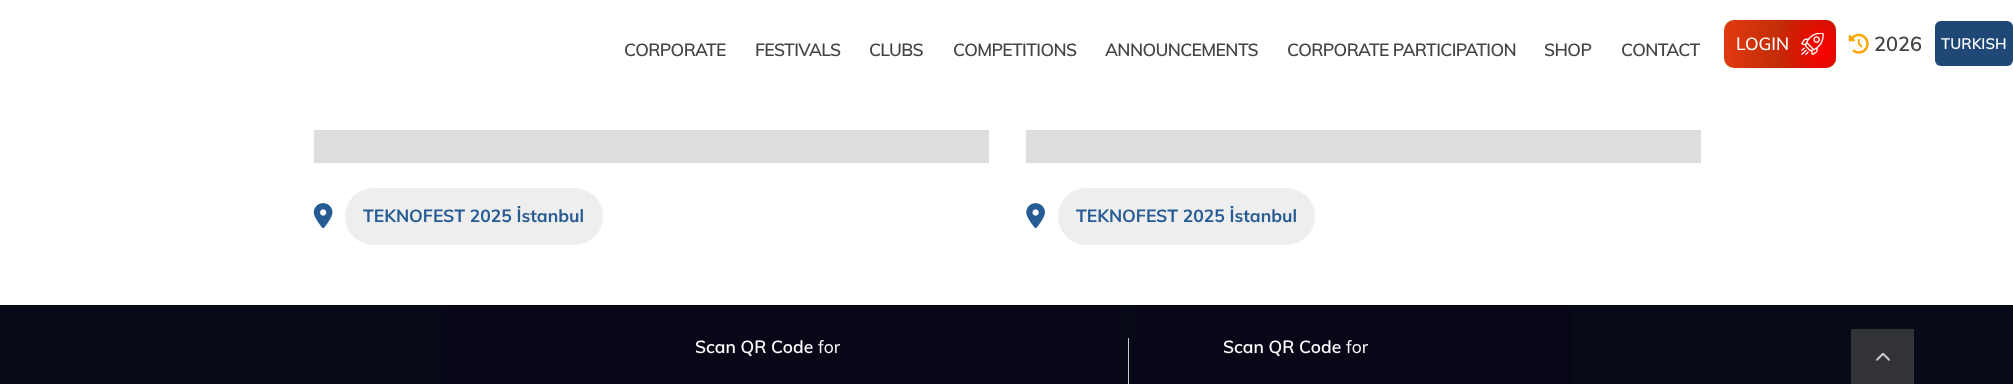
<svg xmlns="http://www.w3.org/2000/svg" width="2013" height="384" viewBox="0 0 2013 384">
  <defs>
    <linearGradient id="g1" gradientUnits="userSpaceOnUse" x1="1722" y1="37" x2="1841" y2="50"><stop offset="0.07" stop-color="#de380f"/><stop offset="1" stop-color="#a02000"/></linearGradient>
    <radialGradient id="g2" gradientUnits="userSpaceOnUse" cx="0" cy="0" r="1" gradientTransform="matrix(46 0 0 59 1822 49)"><stop offset="0" stop-color="#ff0000"/><stop offset="1" stop-color="#ff0000" stop-opacity="0"/></radialGradient>
  </defs>
  <rect width="100%" height="100%" fill="#ffffff"/>
  <text x="624" y="56" font-family="Muli" font-size="17.5" font-weight="600" letter-spacing="-0.6" fill="#444444">CORPORATE</text>
  <text x="755" y="56" font-family="Muli" font-size="17.5" font-weight="600" letter-spacing="-0.6" fill="#444444">FESTIVALS</text>
  <text x="869" y="56" font-family="Muli" font-size="17.5" font-weight="600" letter-spacing="-0.6" fill="#444444">CLUBS</text>
  <text x="953" y="56" font-family="Muli" font-size="17.5" font-weight="600" letter-spacing="-0.6" fill="#444444">COMPETITIONS</text>
  <text x="1105" y="56" font-family="Muli" font-size="17.5" font-weight="600" letter-spacing="-0.6" fill="#444444">ANNOUNCEMENTS</text>
  <text x="1287" y="56" font-family="Muli" font-size="17.5" font-weight="600" letter-spacing="-0.6" fill="#444444">CORPORATE PARTICIPATION</text>
  <text x="1544" y="56" font-family="Muli" font-size="17.5" font-weight="600" letter-spacing="-0.6" fill="#444444">SHOP</text>
  <text x="1621" y="56" font-family="Muli" font-size="17.5" font-weight="600" letter-spacing="-0.6" fill="#444444">CONTACT</text>
  <rect x="1724" y="20" width="112" height="48" rx="10" fill="url(#g1)"/>
  <rect x="1724" y="20" width="112" height="48" rx="10" fill="url(#g2)"/>
  <text x="1736" y="50" font-family="Muli" font-size="17.5" font-weight="500" fill="#ffffff">LOGIN</text>
  <image x="1801" y="33" width="23" height="22" href="img1.png"/>
  <rect x="1849" y="34" width="1" height="20" fill="#f7f7f7"/>
  <image x="1848" y="33" width="21" height="21" href="img2.png"/>
  <rect x="1849" y="34" width="1" height="20" fill="#000000" fill-opacity="0.03"/>
  <text x="1874" y="51" font-family="Muli" font-size="20" font-weight="600" fill="#444444">2026</text>
  <rect x="1935" y="21" width="78" height="45" rx="6" fill="#285a94"/>
  <rect x="1935" y="21" width="78" height="45" rx="6" fill="#000000" fill-opacity="0.2"/>
  <rect x="1935" y="34" width="1" height="20" fill="#1f4673"/>
  <text x="1941" y="49" font-family="Muli" font-size="15" font-weight="600" fill="#ffffff">TURKISH</text>
  <rect x="314" y="130" width="675" height="33" fill="#dddddd"/>
  <image x="313" y="203" width="20" height="25" href="img3.png"/>
  <rect x="345" y="188" width="258" height="57" rx="28.5" fill="#eeeeee"/>
  <text x="363" y="222" font-family="Muli" font-size="17.5" font-weight="bold" fill="#275b94">TEKNOFEST 2025 İstanbul</text>
  <rect x="1026" y="130" width="675" height="33" fill="#dddddd"/>
  <image x="1026" y="203" width="19" height="26" href="img4.png"/>
  <rect x="1058" y="188" width="257" height="57" rx="28.5" fill="#eeeeee"/>
  <text x="1076" y="222" font-family="Muli" font-size="17.5" font-weight="bold" fill="#275b94">TEKNOFEST 2025 İstanbul</text>
  <rect x="0" y="305" width="2013" height="79" fill="#090a18"/>
  <rect x="441" y="305" width="680" height="79" fill="#070717"/>
  <text x="695" y="353" font-family="Muli" font-size="17.5" font-weight="600" fill="#ffffff">Scan QR Code</text>
  <text x="818" y="353" font-family="Muli" font-size="17.5" fill="#ffffff">for</text>
  <rect x="1128" y="338" width="1" height="46" fill="#cccccc"/>
  <rect x="1135" y="305" width="438" height="79" fill="#070717"/>
  <text x="1223" y="353" font-family="Muli" font-size="17.5" font-weight="600" fill="#ffffff">Scan QR Code</text>
  <text x="1346" y="353" font-family="Muli" font-size="17.5" fill="#ffffff">for</text>
  <rect x="1851" y="329" width="63" height="55" fill="#323336"/>
  <image x="1876" y="352" width="14" height="9" href="img5.png"/>
</svg>
